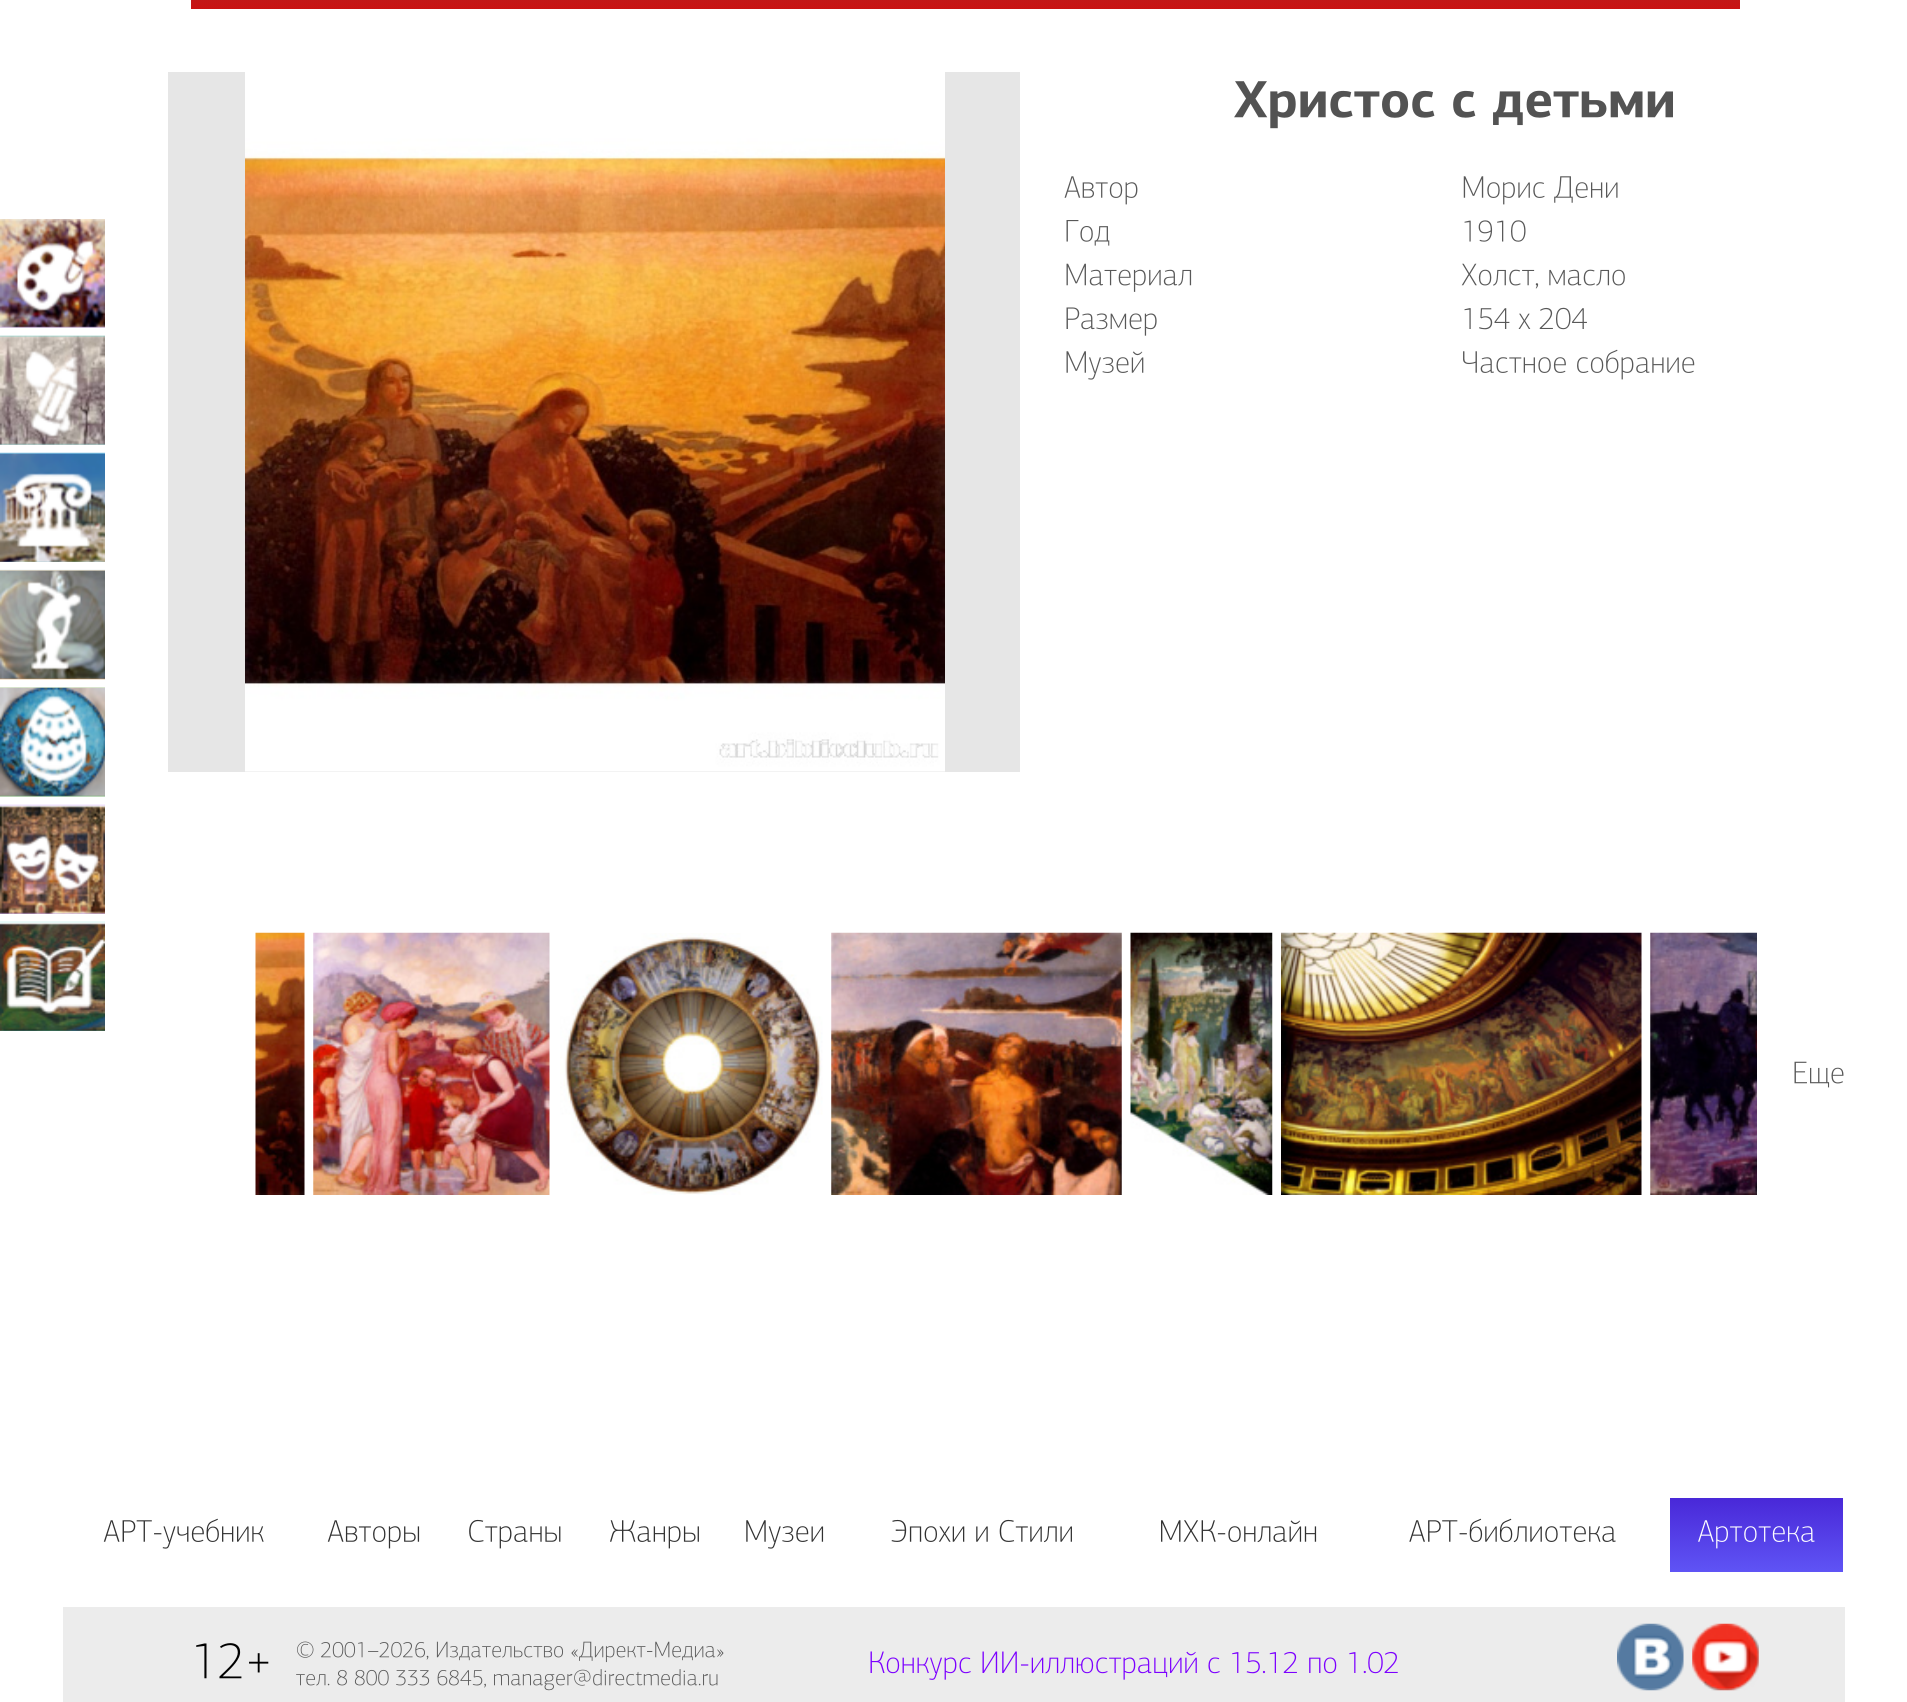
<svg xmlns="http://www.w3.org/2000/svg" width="1907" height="1702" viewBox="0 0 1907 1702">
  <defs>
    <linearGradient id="g1" gradientUnits="userSpaceOnUse" x1="965" y1="-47" x2="965" y2="9"><stop offset="0" stop-color="#a12f2f"/><stop offset="1" stop-color="#c91212"/></linearGradient>
    <linearGradient id="g2" gradientUnits="userSpaceOnUse" x1="1756" y1="1498" x2="1756" y2="1572"><stop offset="0" stop-color="#4928d8"/><stop offset="1" stop-color="#5f54f5"/></linearGradient>
  </defs>
  <rect width="100%" height="100%" fill="#ffffff"/>
  <image x="0" y="326" width="105" height="2" href="img1.png"/>
  <image x="0" y="219" width="105" height="109" href="img2.png"/>
  <image x="0" y="335" width="105" height="110" href="img3.png"/>
  <image x="0" y="335" width="105" height="110" href="img4.png"/>
  <image x="0" y="452" width="105" height="110" href="img5.png"/>
  <image x="0" y="452" width="105" height="110" href="img6.png"/>
  <image x="0" y="569" width="105" height="111" href="img7.png"/>
  <image x="0" y="570" width="105" height="110" href="img8.png"/>
  <image x="0" y="687" width="105" height="110" href="img9.png"/>
  <image x="0" y="687" width="105" height="110" href="img10.png"/>
  <image x="0" y="804" width="105" height="110" href="img11.png"/>
  <image x="0" y="805" width="105" height="109" href="img12.png"/>
  <image x="0" y="921" width="105" height="110" href="img13.png"/>
  <image x="0" y="922" width="105" height="109" href="img14.png"/>
  <rect x="191" y="0" width="1549" height="9" fill="url(#g1)"/>
  <rect x="168" y="72" width="852" height="700" fill="#e6e6e6"/>
  <image x="245" y="72" width="700" height="700" href="img15.png"/>
  <image x="1234" y="81" width="439" height="48" href="img16.png"/>
  <image x="1064" y="176" width="74" height="29" href="img17.png"/>
  <image x="1463" y="176" width="155" height="29" href="img18.png"/>
  <image x="1066" y="220" width="44" height="26" href="img19.png"/>
  <image x="1464" y="220" width="62" height="22" href="img20.png"/>
  <image x="1066" y="263" width="126" height="29" href="img21.png"/>
  <image x="1461" y="263" width="164" height="26" href="img22.png"/>
  <image x="1066" y="307" width="91" height="29" href="img23.png"/>
  <image x="1464" y="307" width="123" height="23" href="img24.png"/>
  <image x="1066" y="351" width="78" height="29" href="img25.png"/>
  <image x="1463" y="349" width="232" height="31" href="img26.png"/>
  <image x="255" y="932" width="50" height="263" href="img27.png"/>
  <image x="313" y="932" width="237" height="263" href="img28.png"/>
  <image x="560" y="933" width="263" height="262" href="img29.png"/>
  <image x="831" y="932" width="291" height="263" href="img30.png"/>
  <image x="1130" y="932" width="143" height="263" href="img31.png"/>
  <image x="1281" y="932" width="361" height="263" href="img32.png"/>
  <image x="1650" y="932" width="107" height="263" href="img33.png"/>
  <image x="1794" y="1061" width="50" height="27" href="img34.png"/>
  <image x="103" y="1518" width="161" height="31" href="img35.png"/>
  <image x="327" y="1520" width="93" height="29" href="img36.png"/>
  <image x="469" y="1519" width="92" height="30" href="img37.png"/>
  <image x="610" y="1520" width="89" height="29" href="img38.png"/>
  <image x="746" y="1520" width="78" height="29" href="img39.png"/>
  <image x="891" y="1519" width="181" height="24" href="img40.png"/>
  <image x="1161" y="1520" width="156" height="23" href="img41.png"/>
  <image x="1409" y="1518" width="207" height="25" href="img42.png"/>
  <rect x="1670" y="1498" width="173" height="74" fill="url(#g2)"/>
  <image x="1698" y="1520" width="117" height="29" href="img43.png"/>
  <rect x="63" y="1607" width="1782" height="95" fill="#ececec"/>
  <image x="196" y="1643" width="73" height="36" href="img44.png"/>
  <image x="297" y="1641" width="427" height="22" href="img45.png"/>
  <image x="296" y="1669" width="422" height="22" href="img46.png"/>
  <image x="870" y="1651" width="528" height="29" href="img47.png"/>
  <image x="1617" y="1623" width="67" height="68" href="img48.png"/>
  <image x="1692" y="1623" width="67" height="68" href="img49.png"/>
</svg>
